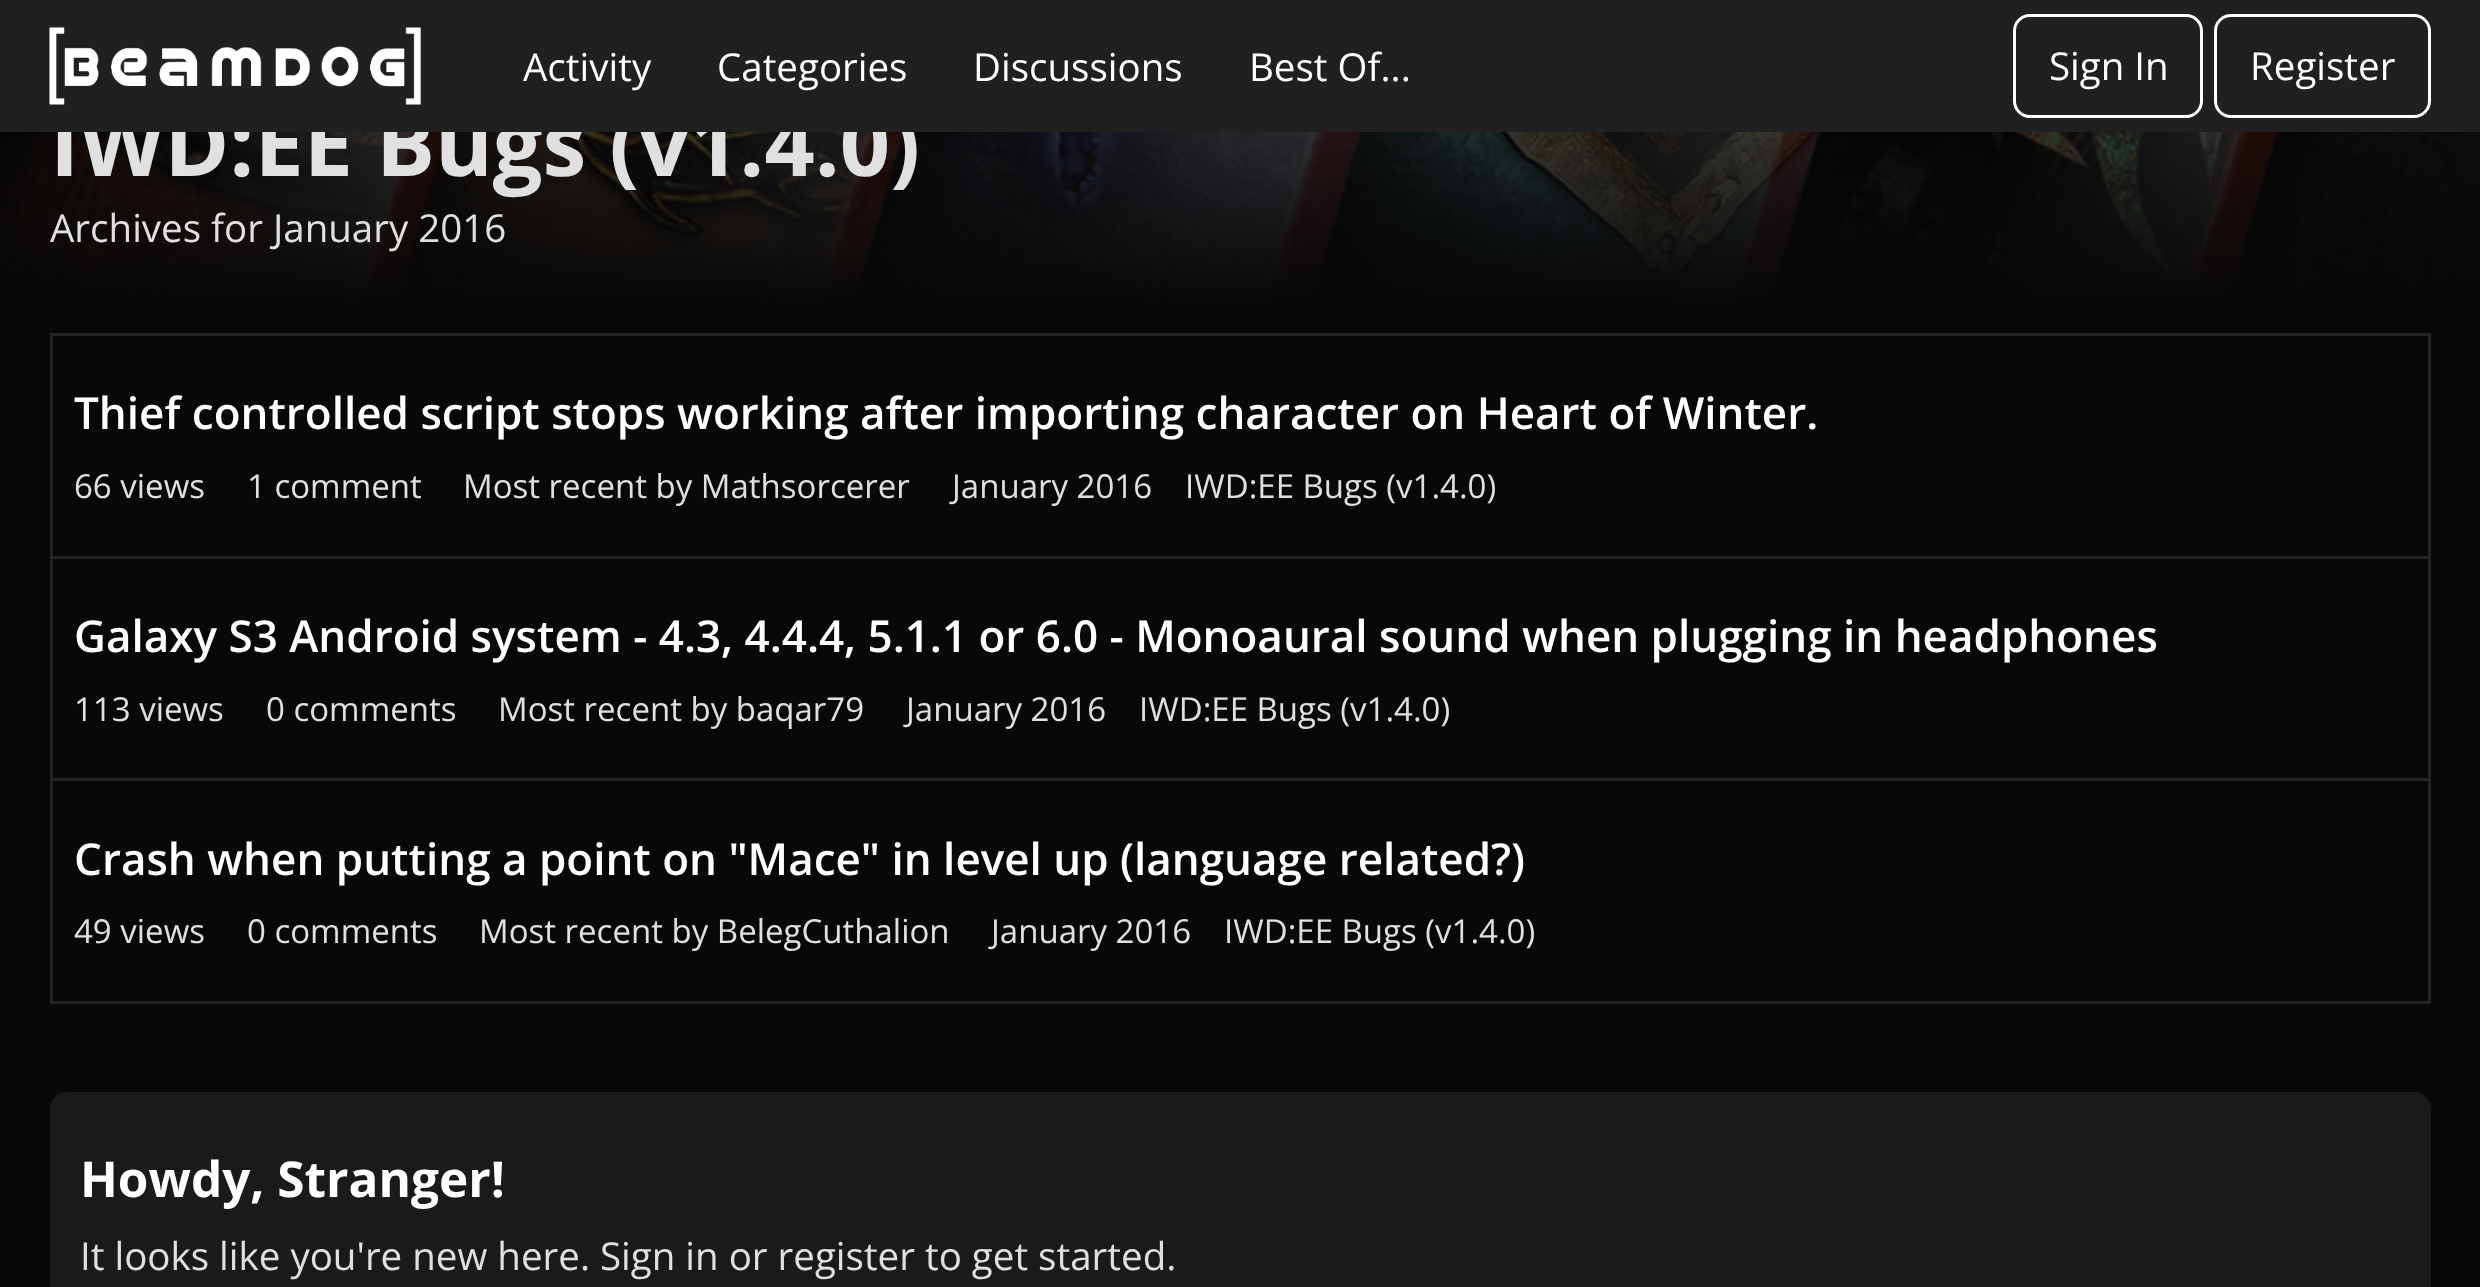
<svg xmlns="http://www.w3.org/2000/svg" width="2480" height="1287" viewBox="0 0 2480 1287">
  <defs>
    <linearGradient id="g1" gradientUnits="userSpaceOnUse" x1="1240" y1="303" x2="1240" y2="-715"><stop offset="0" stop-color="#080808"/><stop offset="0.5" stop-color="#080808" stop-opacity="0"/></linearGradient>
  </defs>
  <rect width="100%" height="100%" fill="#080808"/>
  <image x="0" y="132" width="2480" height="168" href="img2.png"/>
  <rect x="0" y="132" width="2480" height="168" fill="url(#g1)"/>
  <text x="50" y="176" font-family="Open Sans" font-size="88" font-weight="bold" fill="#e0e0e0">IWD:EE Bugs (v1.4.0)</text>
  <rect x="0" y="0" width="2480" height="132" fill="#1f201f"/>
  <image x="49" y="27" width="372" height="78" href="img1.png"/>
  <text x="523" y="81" font-family="Open Sans" font-size="38.5" fill="#ffffff">Activity</text>
  <text x="717" y="81" font-family="Open Sans" font-size="38.5" fill="#ffffff">Categories</text>
  <text x="973" y="81" font-family="Open Sans" font-size="38.5" fill="#ffffff">Discussions</text>
  <text x="1249" y="81" font-family="Open Sans" font-size="38.5" fill="#ffffff">Best Of...</text>
  <rect x="2014.5" y="15.5" width="187" height="101" rx="15.5" fill="none" stroke="#ffffff" stroke-width="3"/>
  <text x="2049" y="80" font-family="Open Sans" font-size="38.5" fill="#ffffff">Sign In</text>
  <rect x="2215.5" y="15.5" width="214" height="101" rx="15.5" fill="none" stroke="#ffffff" stroke-width="3"/>
  <text x="2250" y="80" font-family="Open Sans" font-size="38.5" fill="#ffffff">Register</text>
  <text x="50" y="242" font-family="Open Sans" font-size="38.5" fill="#e0e0e0">Archives for January 2016</text>
  <rect x="50" y="333" width="2381" height="3" fill="#242424"/>
  <rect x="2428" y="333" width="3" height="223" fill="#242424"/>
  <rect x="50" y="333" width="3" height="223" fill="#242424"/>
  <text x="74" y="429" font-family="Open Sans" font-size="44" font-weight="600" fill="#ffffff">Thief controlled script stops working after importing character on Heart of Winter.</text>
  <text x="74" y="498" font-family="Open Sans" font-size="33" fill="#e0e0e0">66 views</text>
  <text x="247" y="498" font-family="Open Sans" font-size="33" fill="#e0e0e0">1 comment</text>
  <text x="463" y="498" font-family="Open Sans" font-size="33" fill="#e0e0e0">Most recent by Mathsorcerer</text>
  <text x="952" y="498" font-family="Open Sans" font-size="33" fill="#e0e0e0">January 2016</text>
  <text x="1185" y="498" font-family="Open Sans" font-size="33" fill="#e0e0e0">IWD:EE Bugs (v1.4.0)</text>
  <rect x="50" y="556" width="2381" height="3" fill="#242424"/>
  <rect x="2428" y="556" width="3" height="222" fill="#242424"/>
  <rect x="50" y="556" width="3" height="222" fill="#242424"/>
  <text x="74" y="652" font-family="Open Sans" font-size="44" font-weight="600" fill="#ffffff">Galaxy S3 Android system - 4.3, 4.4.4, 5.1.1 or 6.0 - Monoaural sound when plugging in headphones</text>
  <text x="74" y="721" font-family="Open Sans" font-size="33" fill="#e0e0e0">113 views</text>
  <text x="266" y="721" font-family="Open Sans" font-size="33" fill="#e0e0e0">0 comments</text>
  <text x="498" y="721" font-family="Open Sans" font-size="33" fill="#e0e0e0">Most recent by baqar79</text>
  <text x="906" y="721" font-family="Open Sans" font-size="33" fill="#e0e0e0">January 2016</text>
  <text x="1139" y="721" font-family="Open Sans" font-size="33" fill="#e0e0e0">IWD:EE Bugs (v1.4.0)</text>
  <rect x="51.5" y="779.5" width="2378" height="223" fill="none" stroke="#242424" stroke-width="3"/>
  <text x="74" y="875" font-family="Open Sans" font-size="44" font-weight="600" fill="#ffffff">Crash when putting a point on "Mace" in level up (language related?)</text>
  <text x="74" y="943" font-family="Open Sans" font-size="33" fill="#e0e0e0">49 views</text>
  <text x="247" y="943" font-family="Open Sans" font-size="33" fill="#e0e0e0">0 comments</text>
  <text x="479" y="943" font-family="Open Sans" font-size="33" fill="#e0e0e0">Most recent by BelegCuthalion</text>
  <text x="991" y="943" font-family="Open Sans" font-size="33" fill="#e0e0e0">January 2016</text>
  <text x="1224" y="943" font-family="Open Sans" font-size="33" fill="#e0e0e0">IWD:EE Bugs (v1.4.0)</text>
  <rect x="50" y="1092" width="2381" height="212" rx="17" fill="#1a1a1a"/>
  <text x="80" y="1197" font-family="Open Sans" font-size="49.5" font-weight="bold" fill="#ffffff">Howdy, Stranger!</text>
  <text x="80" y="1270" font-family="Open Sans" font-size="38.5" fill="#e0e0e0">It looks like you're new here. Sign in or register to get started.</text>
</svg>
